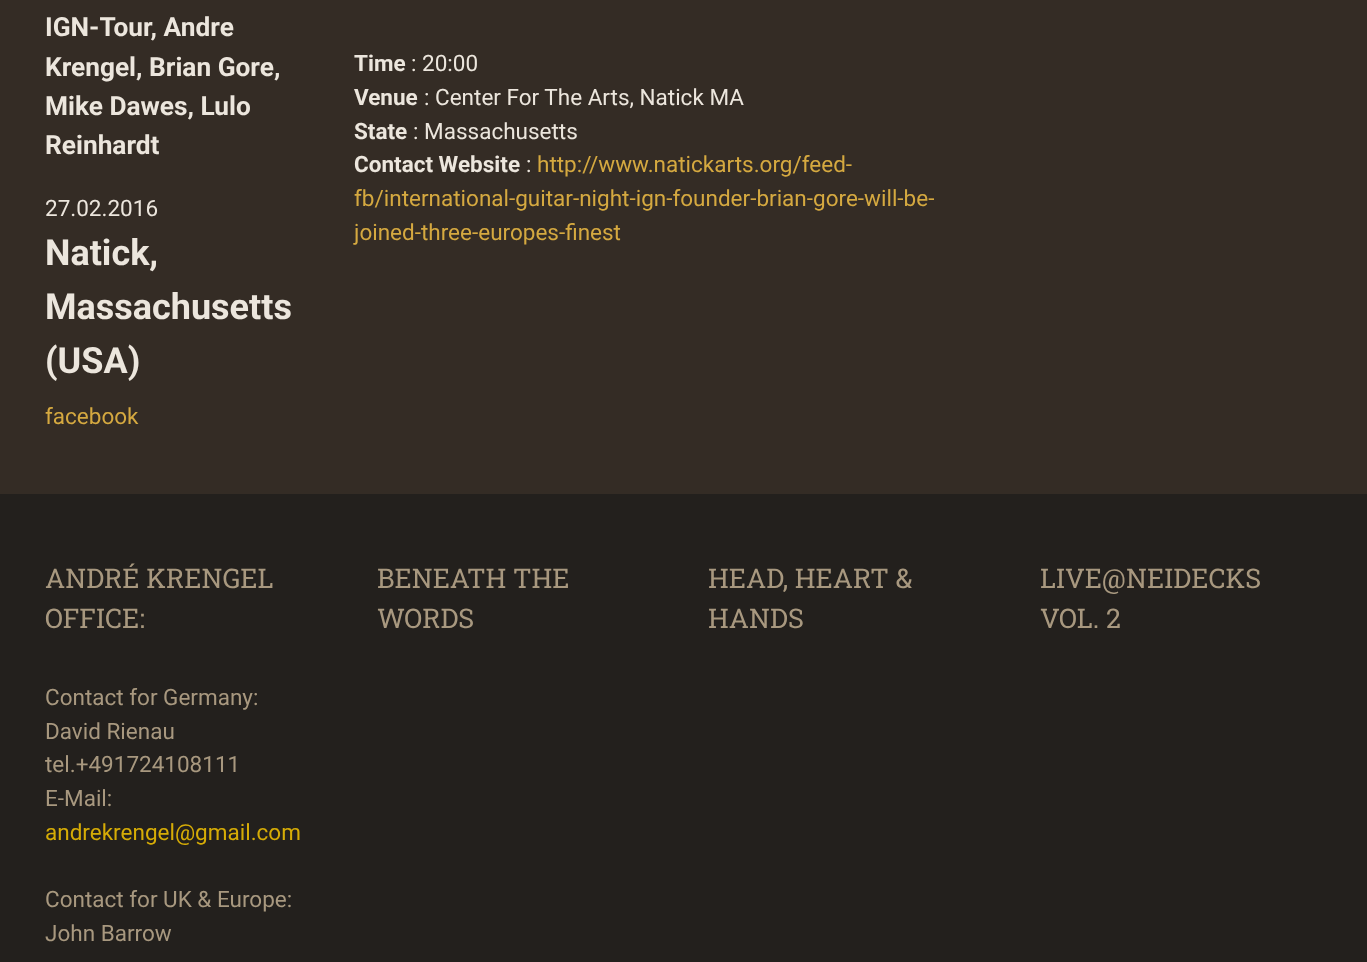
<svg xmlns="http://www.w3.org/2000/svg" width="1367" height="962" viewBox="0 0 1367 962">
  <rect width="100%" height="100%" fill="#342c25"/>
  <text x="45" y="36" font-family="Roboto" font-size="26.25" font-weight="bold" fill="#ece6dd">IGN-Tour, Andre</text>
  <text x="45" y="76" font-family="Roboto" font-size="26.25" font-weight="bold" fill="#ece6dd">Krengel, Brian Gore,</text>
  <text x="45" y="115" font-family="Roboto" font-size="26.25" font-weight="bold" fill="#ece6dd">Mike Dawes, Lulo</text>
  <text x="45" y="154" font-family="Roboto" font-size="26.25" font-weight="bold" fill="#ece6dd">Reinhardt</text>
  <text x="45" y="216" font-family="Roboto" font-size="22.5" fill="#ece6dd">27.02.2016</text>
  <text x="45" y="265" font-family="Roboto" font-size="36" font-weight="bold" fill="#ece6dd">Natick,</text>
  <text x="45" y="319" font-family="Roboto" font-size="36" font-weight="bold" fill="#ece6dd">Massachusetts</text>
  <text x="45" y="373" font-family="Roboto" font-size="36" font-weight="bold" fill="#ece6dd">(USA)</text>
  <text x="45" y="424" font-family="Roboto" font-size="22.5" fill="#d5a940">facebook</text>
  <text x="354" y="71" font-family="Roboto" font-size="22.5" font-weight="bold" fill="#ece6dd">Time</text>
  <text x="411" y="71" font-family="Roboto" font-size="22.5" fill="#ece6dd">: 20:00</text>
  <text x="354" y="105" font-family="Roboto" font-size="22.5" font-weight="bold" fill="#ece6dd">Venue</text>
  <text x="424" y="105" font-family="Roboto" font-size="22.5" fill="#ece6dd">: Center For The Arts, Natick MA</text>
  <text x="354" y="139" font-family="Roboto" font-size="22.5" font-weight="bold" fill="#ece6dd">State</text>
  <text x="413" y="139" font-family="Roboto" font-size="22.5" fill="#ece6dd">: Massachusetts</text>
  <text x="354" y="172" font-family="Roboto" font-size="22.5" font-weight="bold" fill="#ece6dd">Contact Website</text>
  <text x="526" y="172" font-family="Roboto" font-size="22.5" fill="#ece6dd">:</text>
  <text x="537" y="172" font-family="Roboto" font-size="22.5" fill="#d5a940">http://www.natickarts.org/feed-</text>
  <text x="354" y="206" font-family="Roboto" font-size="22.5" fill="#d5a940">fb/international-guitar-night-ign-founder-brian-gore-will-be-</text>
  <text x="354" y="240" font-family="Roboto" font-size="22.5" fill="#d5a940">joined-three-europes-finest</text>
  <rect x="0" y="494" width="1367" height="468" fill="#23201d"/>
  <text x="45" y="588" font-family="Roboto Slab" font-size="27" fill="#a8987f">ANDRÉ KRENGEL</text>
  <text x="45" y="628" font-family="Roboto Slab" font-size="27" fill="#a8987f">OFFICE:</text>
  <text x="45" y="705" font-family="Roboto" font-size="22.5" fill="#a8987f">Contact for Germany:</text>
  <text x="45" y="739" font-family="Roboto" font-size="22.5" fill="#a8987f">David Rienau</text>
  <text x="45" y="772" font-family="Roboto" font-size="22.5" fill="#a8987f">tel.+491724108111</text>
  <text x="45" y="806" font-family="Roboto" font-size="22.5" fill="#a8987f">E-Mail:</text>
  <text x="45" y="840" font-family="Roboto" font-size="22.5" fill="#d6ac06">andrekrengel@gmail.com</text>
  <text x="45" y="907" font-family="Roboto" font-size="22.5" fill="#a8987f">Contact for UK &amp; Europe:</text>
  <text x="45" y="941" font-family="Roboto" font-size="22.5" fill="#a8987f">John Barrow</text>
  <text x="377" y="588" font-family="Roboto Slab" font-size="27" fill="#a8987f">BENEATH THE</text>
  <text x="377" y="628" font-family="Roboto Slab" font-size="27" fill="#a8987f">WORDS</text>
  <text x="708" y="588" font-family="Roboto Slab" font-size="27" fill="#a8987f">HEAD, HEART &amp;</text>
  <text x="708" y="628" font-family="Roboto Slab" font-size="27" fill="#a8987f">HANDS</text>
  <text x="1040" y="588" font-family="Roboto Slab" font-size="27" fill="#a8987f">LIVE@NEIDECKS</text>
  <text x="1040" y="628" font-family="Roboto Slab" font-size="27" fill="#a8987f">VOL. 2</text>
</svg>
